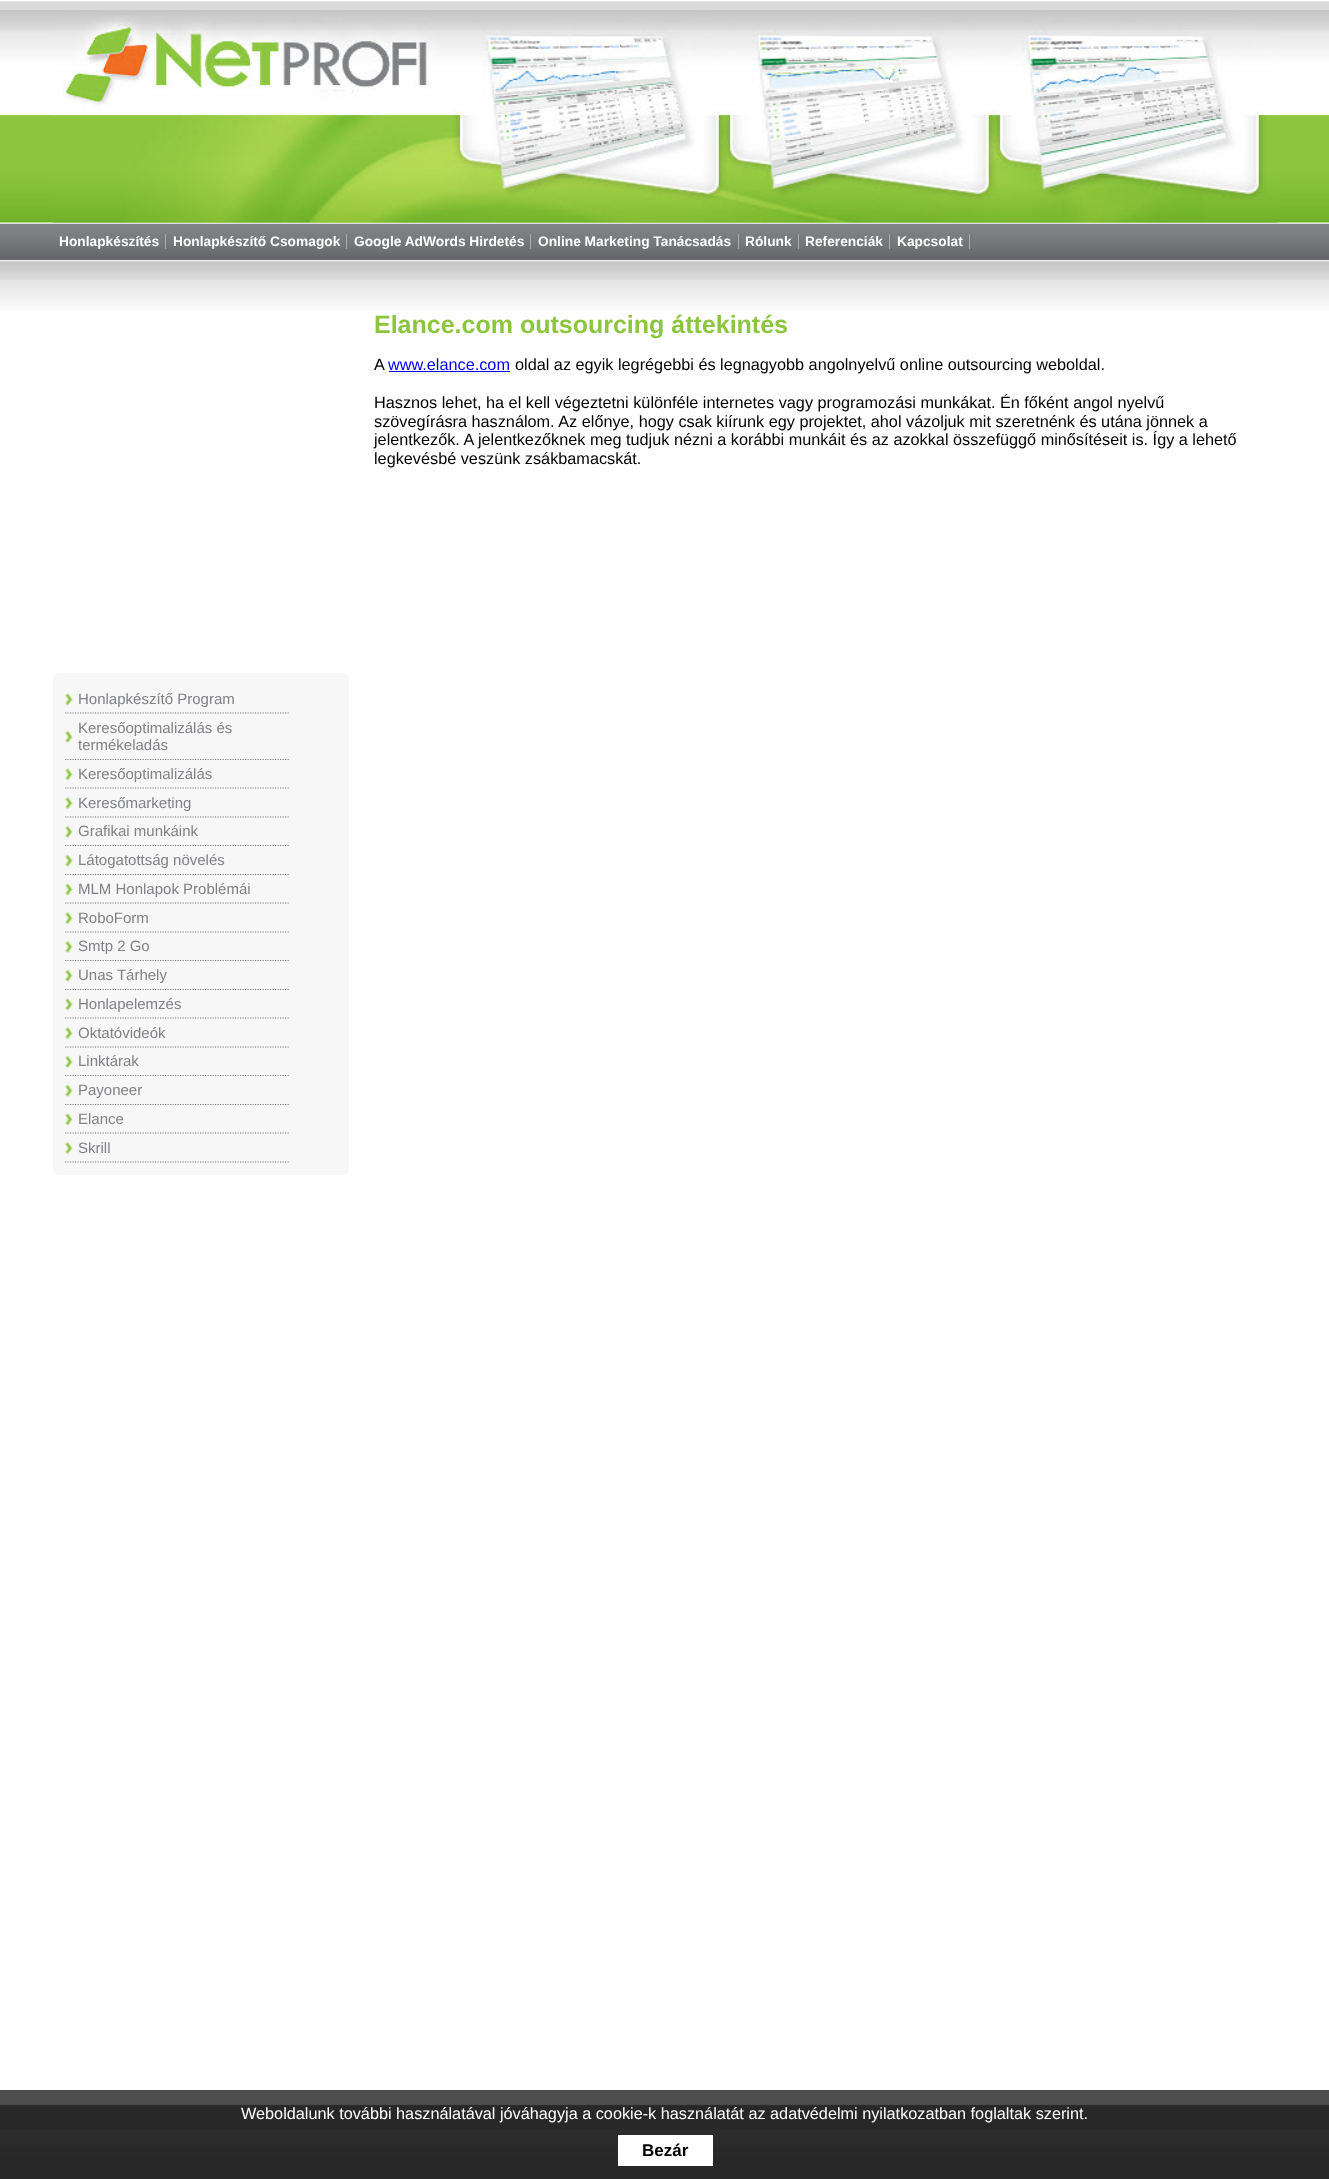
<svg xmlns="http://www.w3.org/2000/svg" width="1329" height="2179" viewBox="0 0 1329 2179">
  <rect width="100%" height="100%" fill="#ffffff"/>
  <rect x="0" y="2090" width="1329" height="14" fill="#4d4d4d"/>
  <image x="0" y="2104" width="1329" height="75" href="img1.png"/>
  <image x="0" y="1" width="1329" height="310" href="img2.png"/>
  <image x="52" y="15" width="1226" height="208" href="img3.png"/>
  <rect x="165" y="234" width="1" height="15" fill="#a9a9a9"/>
  <text x="59" y="246" font-family="Liberation Sans" font-size="13.75" font-weight="bold" fill="#ffffff">Honlapkészítés</text>
  <rect x="346" y="234" width="1" height="15" fill="#a9a9a9"/>
  <text x="173" y="246" font-family="Liberation Sans" font-size="13.75" font-weight="bold" fill="#ffffff">Honlapkészítő Csomagok</text>
  <rect x="530" y="234" width="1" height="15" fill="#a9a9a9"/>
  <text x="354" y="246" font-family="Liberation Sans" font-size="13.75" font-weight="bold" fill="#ffffff">Google AdWords Hirdetés</text>
  <rect x="738" y="234" width="1" height="15" fill="#a9a9a9"/>
  <text x="538" y="246" font-family="Liberation Sans" font-size="13.75" font-weight="bold" fill="#ffffff">Online Marketing Tanácsadás</text>
  <rect x="798" y="234" width="1" height="15" fill="#a9a9a9"/>
  <text x="745" y="246" font-family="Liberation Sans" font-size="13.75" font-weight="bold" fill="#ffffff">Rólunk</text>
  <rect x="889" y="234" width="1" height="15" fill="#a9a9a9"/>
  <text x="805" y="246" font-family="Liberation Sans" font-size="13.75" font-weight="bold" fill="#ffffff">Referenciák</text>
  <rect x="969" y="234" width="1" height="15" fill="#a9a9a9"/>
  <text x="897" y="246" font-family="Liberation Sans" font-size="13.75" font-weight="bold" fill="#ffffff">Kapcsolat</text>
  <text x="374" y="333" font-family="Liberation Sans" font-size="25" font-weight="bold" fill="#8cc63f">Elance.com outsourcing áttekintés</text>
  <text x="374" y="370" font-family="Liberation Sans" font-size="16.25" fill="#000000">A</text>
  <text x="388" y="370" font-family="Liberation Sans" font-size="16.25" fill="#0000ee">www.elance.com</text>
  <rect x="389" y="371" width="121" height="1" fill="#0000ee"/>
  <text x="515" y="370" font-family="Liberation Sans" font-size="16.25" fill="#000000">oldal az egyik legrégebbi és legnagyobb angolnyelvű online outsourcing weboldal.</text>
  <text x="374" y="408" font-family="Liberation Sans" font-size="16.25" fill="#000000">Hasznos lehet, ha el kell végeztetni különféle internetes vagy programozási munkákat. Én főként angol nyelvű</text>
  <text x="374" y="427" font-family="Liberation Sans" font-size="16.25" fill="#000000">szövegírásra használom. Az előnye, hogy csak kiírunk egy projektet, ahol vázoljuk mit szeretnénk és utána jönnek a</text>
  <text x="374" y="445" font-family="Liberation Sans" font-size="16.25" fill="#000000">jelentkezők. A jelentkezőknek meg tudjuk nézni a korábbi munkáit és az azokkal összefüggő minősítéseit is. Így a lehető</text>
  <text x="374" y="464" font-family="Liberation Sans" font-size="16.25" fill="#000000">legkevésbé veszünk zsákbamacskát.</text>
  <rect x="53" y="673" width="296" height="502" rx="6" fill="#f7f7f7"/>
  <image x="65" y="693" width="8" height="13" href="img4.png"/>
  <path d="M65 713H290" fill="none" stroke="#818285" stroke-width="1.2" stroke-dasharray="1.25 1.25"/>
  <text x="78" y="704" font-family="Liberation Sans" font-size="15" fill="#818285">Honlapkészítő Program</text>
  <image x="65" y="731" width="8" height="12" href="img5.png"/>
  <path d="M65 759.5H290" fill="none" stroke="#818285" stroke-width="1.2" stroke-dasharray="1.25 1.25"/>
  <text x="78" y="733" font-family="Liberation Sans" font-size="15" fill="#818285">Keresőoptimalizálás és</text>
  <text x="78" y="750" font-family="Liberation Sans" font-size="15" fill="#818285">termékeladás</text>
  <image x="65" y="768" width="8" height="13" href="img4.png"/>
  <path d="M65 788H290" fill="none" stroke="#818285" stroke-width="1.2" stroke-dasharray="1.25 1.25"/>
  <text x="78" y="779" font-family="Liberation Sans" font-size="15" fill="#818285">Keresőoptimalizálás</text>
  <image x="65" y="797" width="8" height="12" href="img6.png"/>
  <path d="M65 817H290" fill="none" stroke="#818285" stroke-width="1.2" stroke-dasharray="1.25 1.25"/>
  <text x="78" y="808" font-family="Liberation Sans" font-size="15" fill="#818285">Keresőmarketing</text>
  <image x="65" y="826" width="8" height="12" href="img5.png"/>
  <path d="M65 845.5H290" fill="none" stroke="#818285" stroke-width="1.2" stroke-dasharray="1.25 1.25"/>
  <text x="78" y="836" font-family="Liberation Sans" font-size="15" fill="#818285">Grafikai munkáink</text>
  <image x="65" y="854" width="8" height="13" href="img7.png"/>
  <path d="M65 874.5H290" fill="none" stroke="#818285" stroke-width="1.2" stroke-dasharray="1.25 1.25"/>
  <text x="78" y="865" font-family="Liberation Sans" font-size="15" fill="#818285">Látogatottság növelés</text>
  <image x="65" y="883" width="8" height="13" href="img4.png"/>
  <path d="M65 903H290" fill="none" stroke="#818285" stroke-width="1.2" stroke-dasharray="1.25 1.25"/>
  <text x="78" y="894" font-family="Liberation Sans" font-size="15" fill="#818285">MLM Honlapok Problémái</text>
  <image x="65" y="912" width="8" height="12" href="img6.png"/>
  <path d="M65 932H290" fill="none" stroke="#818285" stroke-width="1.2" stroke-dasharray="1.25 1.25"/>
  <text x="78" y="923" font-family="Liberation Sans" font-size="15" fill="#818285">RoboForm</text>
  <image x="65" y="941" width="8" height="12" href="img5.png"/>
  <path d="M65 960.5H290" fill="none" stroke="#818285" stroke-width="1.2" stroke-dasharray="1.25 1.25"/>
  <text x="78" y="951" font-family="Liberation Sans" font-size="15" fill="#818285">Smtp 2 Go</text>
  <image x="65" y="969" width="8" height="13" href="img7.png"/>
  <path d="M65 989.5H290" fill="none" stroke="#818285" stroke-width="1.2" stroke-dasharray="1.25 1.25"/>
  <text x="78" y="980" font-family="Liberation Sans" font-size="15" fill="#818285">Unas Tárhely</text>
  <image x="65" y="998" width="8" height="13" href="img4.png"/>
  <path d="M65 1018H290" fill="none" stroke="#818285" stroke-width="1.2" stroke-dasharray="1.25 1.25"/>
  <text x="78" y="1009" font-family="Liberation Sans" font-size="15" fill="#818285">Honlapelemzés</text>
  <image x="65" y="1027" width="8" height="12" href="img6.png"/>
  <path d="M65 1047H290" fill="none" stroke="#818285" stroke-width="1.2" stroke-dasharray="1.25 1.25"/>
  <text x="78" y="1038" font-family="Liberation Sans" font-size="15" fill="#818285">Oktatóvideók</text>
  <image x="65" y="1056" width="8" height="12" href="img5.png"/>
  <path d="M65 1075.5H290" fill="none" stroke="#818285" stroke-width="1.2" stroke-dasharray="1.25 1.25"/>
  <text x="78" y="1066" font-family="Liberation Sans" font-size="15" fill="#818285">Linktárak</text>
  <image x="65" y="1084" width="8" height="13" href="img7.png"/>
  <path d="M65 1104.5H290" fill="none" stroke="#818285" stroke-width="1.2" stroke-dasharray="1.25 1.25"/>
  <text x="78" y="1095" font-family="Liberation Sans" font-size="15" fill="#818285">Payoneer</text>
  <image x="65" y="1113" width="8" height="13" href="img4.png"/>
  <path d="M65 1133H290" fill="none" stroke="#818285" stroke-width="1.2" stroke-dasharray="1.25 1.25"/>
  <text x="78" y="1124" font-family="Liberation Sans" font-size="15" fill="#818285">Elance</text>
  <image x="65" y="1142" width="8" height="12" href="img6.png"/>
  <path d="M65 1162H290" fill="none" stroke="#818285" stroke-width="1.2" stroke-dasharray="1.25 1.25"/>
  <text x="78" y="1153" font-family="Liberation Sans" font-size="15" fill="#818285">Skrill</text>
  <text x="241" y="2119" font-family="Liberation Sans" font-size="16.25" fill="#ffffff">Weboldalunk további használatával jóváhagyja a cookie-k használatát az adatvédelmi nyilatkozatban foglaltak szerint.</text>
  <rect x="618" y="2135" width="95" height="31" fill="#ffffff"/>
  <text x="642" y="2156" font-family="Liberation Sans" font-size="17" font-weight="bold" fill="#000000">Bezár</text>
</svg>
